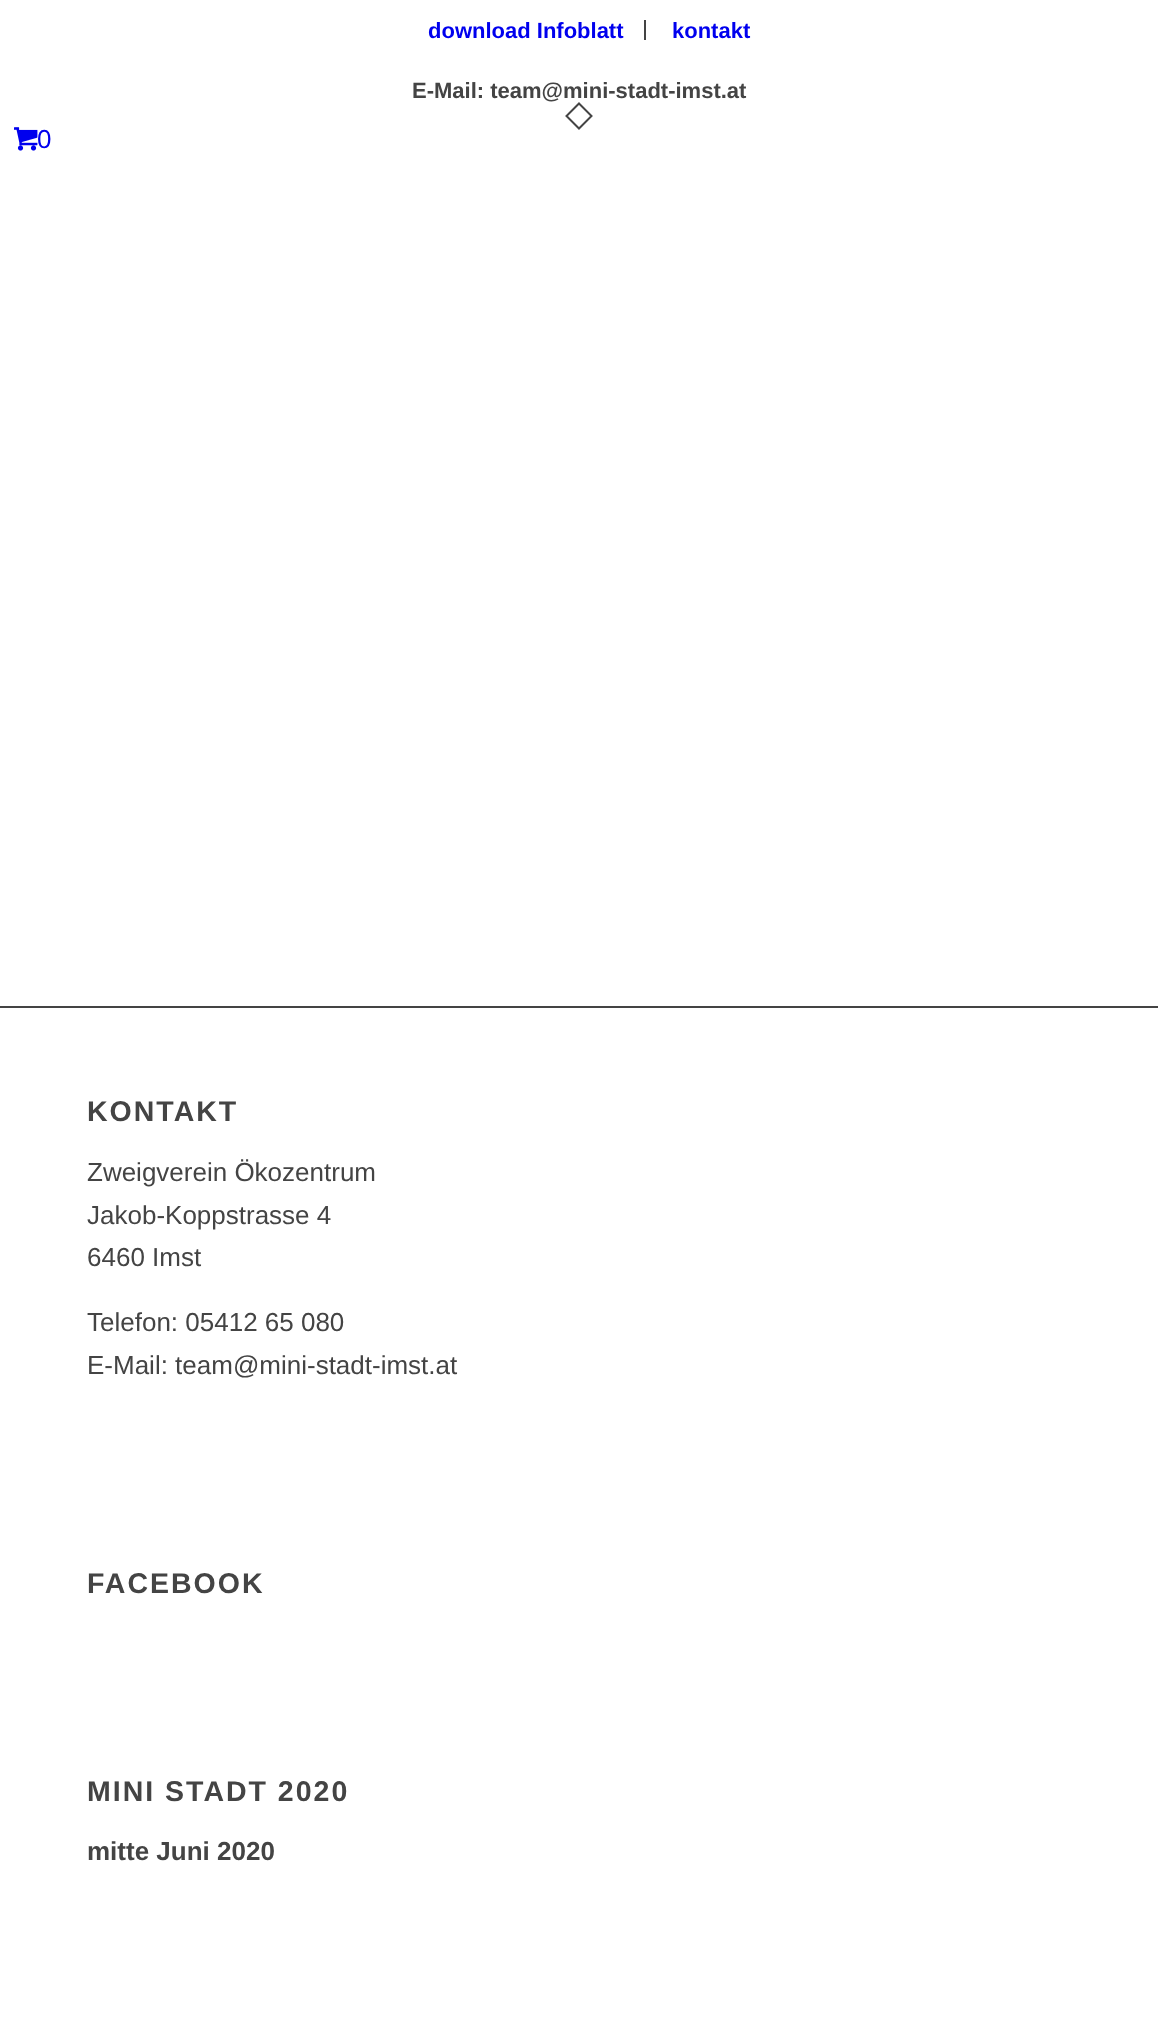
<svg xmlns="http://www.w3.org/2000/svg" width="1158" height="2025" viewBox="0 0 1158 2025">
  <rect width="100%" height="100%" fill="#ffffff"/>
  <rect x="644" y="20" width="2" height="20" fill="#444444"/>
  <text x="428" y="38" font-family="Liberation Sans" font-size="22" font-weight="bold" fill="#0000ee">download Infoblatt</text>
  <text x="672" y="38" font-family="Liberation Sans" font-size="22" font-weight="bold" fill="#0000ee">kontakt</text>
  <text x="412" y="98" font-family="Liberation Sans" font-size="22" font-weight="bold" fill="#444444">E-Mail: team@mini-stadt-imst.at</text>
  <path d="M579 103.5L591.5 116L579 128.5L566.5 116Z" fill="none" stroke="#444444" stroke-width="2"/>
  <image x="14" y="127" width="24" height="24" href="img1.png"/>
  <text x="37" y="148" font-family="Liberation Sans" font-size="26" fill="#0000ee">0</text>
  <rect x="0" y="1006" width="1158" height="2" fill="#444444"/>
  <text x="87" y="1121" font-family="Liberation Sans" font-size="28.5" font-weight="bold" letter-spacing="2" fill="#444444">KONTAKT</text>
  <text x="87" y="1181" font-family="Liberation Sans" font-size="26" fill="#444444">Zweigverein Ökozentrum</text>
  <text x="87" y="1224" font-family="Liberation Sans" font-size="26" fill="#444444">Jakob-Koppstrasse 4</text>
  <text x="87" y="1266" font-family="Liberation Sans" font-size="26" fill="#444444">6460 Imst</text>
  <text x="87" y="1331" font-family="Liberation Sans" font-size="26" fill="#444444">Telefon: 05412 65 080</text>
  <text x="87" y="1374" font-family="Liberation Sans" font-size="26" fill="#444444">E-Mail: team@mini-stadt-imst.at</text>
  <text x="87" y="1593" font-family="Liberation Sans" font-size="28.5" font-weight="bold" letter-spacing="2" fill="#444444">FACEBOOK</text>
  <text x="87" y="1801" font-family="Liberation Sans" font-size="28.5" font-weight="bold" letter-spacing="2" fill="#444444">MINI STADT 2020</text>
  <text x="87" y="1860" font-family="Liberation Sans" font-size="26" font-weight="bold" fill="#444444">mitte Juni 2020</text>
</svg>
